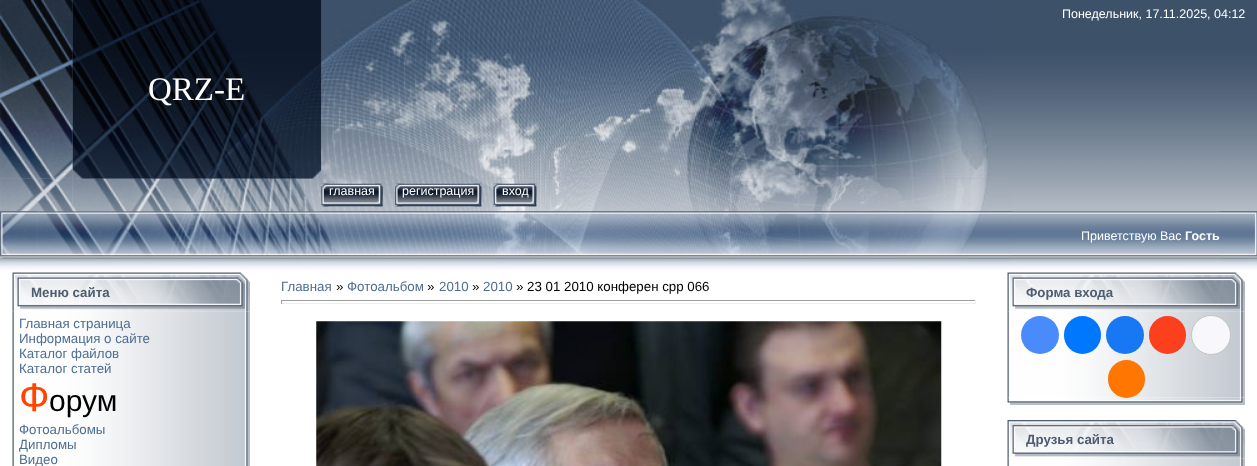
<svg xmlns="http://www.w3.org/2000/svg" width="1257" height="466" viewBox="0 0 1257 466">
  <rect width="100%" height="100%" fill="#ffffff"/>
  <image x="0" y="0" width="1257" height="270" href="img1.png"/>
  <image x="72" y="0" width="250" height="179" href="img4.png"/>
  <image x="0" y="0" width="73" height="179" href="img2.png"/>
  <image x="321" y="0" width="669" height="179" href="img3.png"/>
  <text x="1062" y="18" font-family="Liberation Sans" font-size="12.5" fill="#ffffff">Понедельник, 17.11.2025, 04:12</text>
  <text x="148" y="100" font-family="Liberation Serif" font-size="33" fill="#ffffff">QRZ-E</text>
  <image x="321" y="178" width="690" height="34" href="img7.png"/>
  <image x="37" y="211" width="975" height="50" href="img18.png"/>
  <image x="0" y="178" width="73" height="34" href="img5.png"/>
  <image x="321" y="183" width="62" height="24" href="img8.png"/>
  <image x="321" y="183" width="8" height="24" href="img9.png"/>
  <image x="72" y="178" width="250" height="34" href="img6.png"/>
  <text x="329" y="195" font-family="Liberation Sans" font-size="12.5" fill="#ffffff">главная</text>
  <image x="375" y="183" width="8" height="24" href="img10.png"/>
  <image x="395" y="183" width="87" height="24" href="img11.png"/>
  <image x="395" y="183" width="8" height="24" href="img12.png"/>
  <text x="402" y="195" font-family="Liberation Sans" font-size="12.5" fill="#ffffff">регистрация</text>
  <image x="473" y="183" width="9" height="24" href="img13.png"/>
  <image x="493" y="183" width="44" height="24" href="img14.png"/>
  <image x="493" y="183" width="9" height="24" href="img15.png"/>
  <text x="502" y="195" font-family="Liberation Sans" font-size="12.5" fill="#ffffff">вход</text>
  <image x="528" y="183" width="9" height="24" href="img16.png"/>
  <image x="0" y="211" width="38" height="49" href="img17.png"/>
  <text x="1081" y="240" font-family="Liberation Sans" font-size="12.5" fill="#ffffff">Приветствую Вас</text>
  <text x="1185" y="240" font-family="Liberation Sans" font-size="12.5" font-weight="bold" fill="#ffffff">Гость</text>
  <image x="1220" y="211" width="37" height="50" href="img19.png"/>
  <image x="12" y="272" width="238" height="40" href="img20.png"/>
  <text x="31" y="297" font-family="Liberation Sans" font-size="13.3" font-weight="bold" fill="#4f5d71">Меню сайта</text>
  <image x="12" y="311" width="238" height="155" href="img21.png"/>
  <text x="19" y="328" font-family="Liberation Sans" font-size="13.3" fill="#4d6d91">Главная страница</text>
  <text x="19" y="343" font-family="Liberation Sans" font-size="13.3" fill="#4d6d91">Информация о сайте</text>
  <text x="19" y="358" font-family="Liberation Sans" font-size="13.3" fill="#4d6d91">Каталог файлов</text>
  <text x="19" y="373" font-family="Liberation Sans" font-size="13.3" fill="#4d6d91">Каталог статей</text>
  <text x="19" y="411" font-family="Liberation Sans" font-size="40" fill="#ff4500">Ф</text>
  <text x="49" y="411" font-family="Liberation Sans" font-size="30" fill="#000000">орум</text>
  <text x="19" y="434" font-family="Liberation Sans" font-size="13.3" fill="#4d6d91">Фотоальбомы</text>
  <text x="19" y="449" font-family="Liberation Sans" font-size="13.3" fill="#4d6d91">Дипломы</text>
  <text x="19" y="464" font-family="Liberation Sans" font-size="13.3" fill="#4d6d91">Видео</text>
  <text x="281" y="291" font-family="Liberation Sans" font-size="13.3" fill="#4d6d91">Главная</text>
  <text x="336" y="291" font-family="Liberation Sans" font-size="13.3" fill="#000000">»</text>
  <text x="347" y="291" font-family="Liberation Sans" font-size="13.3" fill="#4d6d91">Фотоальбом</text>
  <text x="427" y="291" font-family="Liberation Sans" font-size="13.3" fill="#000000">»</text>
  <text x="439" y="291" font-family="Liberation Sans" font-size="13.3" fill="#4d6d91">2010</text>
  <text x="472" y="291" font-family="Liberation Sans" font-size="13.3" fill="#000000">»</text>
  <text x="483" y="291" font-family="Liberation Sans" font-size="13.3" fill="#4d6d91">2010</text>
  <text x="516" y="291" font-family="Liberation Sans" font-size="13.3" fill="#000000">» 23 01 2010 конферен срр 066</text>
  <rect x="281" y="300" width="695" height="1" fill="#9f9f9f"/>
  <rect x="975" y="300" width="1" height="4" fill="#eeeeee"/>
  <rect x="281" y="303" width="695" height="1" fill="#eeeeee"/>
  <rect x="281" y="300" width="1" height="4" fill="#9f9f9f"/>
  <image x="316" y="321" width="626" height="145" href="img22.png"/>
  <image x="1007" y="272" width="238" height="40" href="img23.png"/>
  <text x="1026" y="297" font-family="Liberation Sans" font-size="13.3" font-weight="bold" fill="#4f5d71">Форма входа</text>
  <image x="1007" y="311" width="238" height="87" href="img24.png"/>
  <circle cx="1040" cy="335" r="19" fill="#498bfa"/>
  <rect x="1064" y="316" width="37" height="38" rx="18.5" fill="#0077ff"/>
  <circle cx="1125" cy="335" r="19" fill="#1877f2"/>
  <rect x="1149" y="316" width="37" height="38" rx="18.5" fill="#fc3f1d"/>
  <circle cx="1211" cy="335" r="19.5" fill="#f8f8fc" stroke="#c4c4c4"/>
  <image x="1007" y="397" width="238" height="8" href="img25.png"/>
  <rect x="1108" y="360" width="37" height="38" rx="18.5" fill="#ff7700"/>
  <image x="1007" y="420" width="238" height="39" href="img26.png"/>
  <text x="1026" y="444" font-family="Liberation Sans" font-size="13.3" font-weight="bold" fill="#4f5d71">Друзья сайта</text>
  <image x="1007" y="458" width="238" height="8" href="img27.png"/>
</svg>
